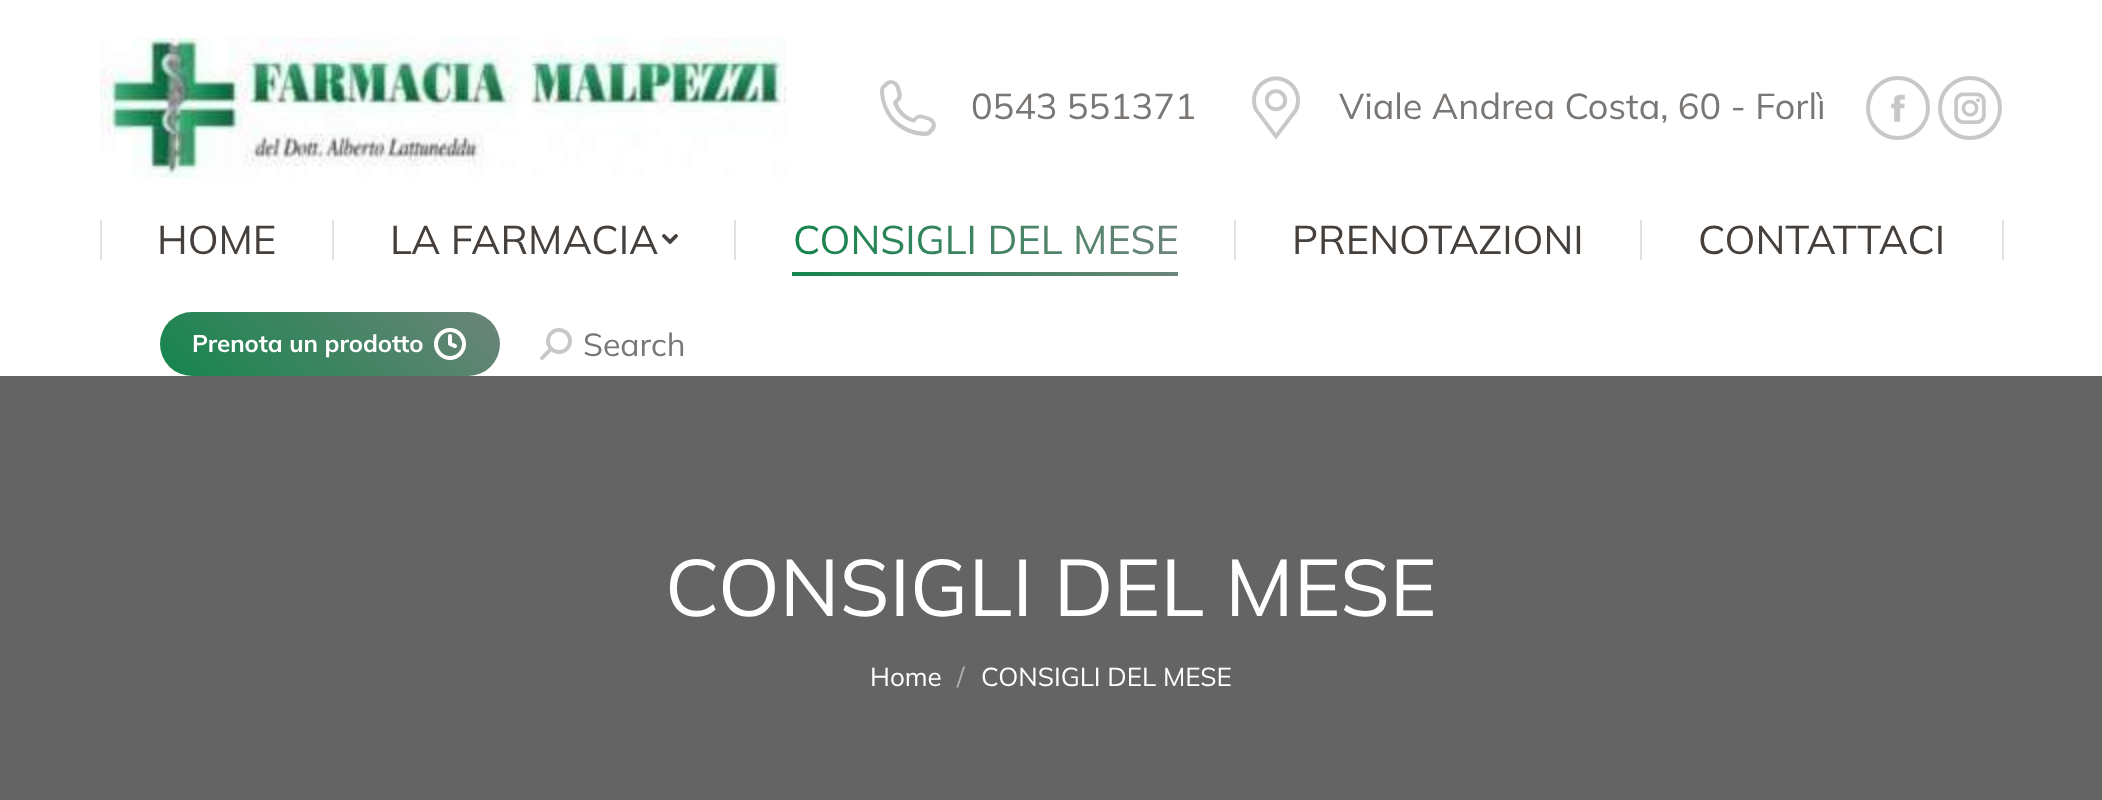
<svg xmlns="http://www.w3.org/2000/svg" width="2102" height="800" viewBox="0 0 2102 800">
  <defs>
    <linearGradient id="g1" gradientUnits="userSpaceOnUse" x1="793" y1="240" x2="1178" y2="240"><stop offset="0" stop-color="#15854d"/><stop offset="1" stop-color="#6c8479"/></linearGradient>
    <linearGradient id="g2" gradientUnits="userSpaceOnUse" x1="792" y1="274" x2="1178" y2="274"><stop offset="0" stop-color="#15854d"/><stop offset="1" stop-color="#6c8479"/></linearGradient>
    <linearGradient id="g3" gradientUnits="userSpaceOnUse" x1="229" y1="445" x2="431" y2="243"><stop offset="0" stop-color="#15854d"/><stop offset="1" stop-color="#6c8479"/></linearGradient>
  </defs>
  <rect width="100%" height="100%" fill="#ffffff"/>
  <image x="100" y="38" width="686" height="140" href="img1.png"/>
  <image x="880" y="80" width="56" height="56" href="img2.png"/>
  <text x="971" y="119" font-family="Mulish" font-size="36" fill="#7a7674">0543 551371</text>
  <image x="1252" y="76" width="48" height="64" href="img3.png"/>
  <text x="1339" y="119" font-family="Mulish" font-size="36" fill="#7a7674">Viale Andrea Costa, 60 - Forlì</text>
  <circle cx="1898" cy="108" r="30" fill="none" stroke="#cac8c7" stroke-width="4"/>
  <image x="1891" y="94" width="14" height="28" href="img4.png"/>
  <circle cx="1970" cy="108" r="30" fill="none" stroke="#cac8c7" stroke-width="4"/>
  <image x="1954" y="92" width="32" height="32" href="img5.png"/>
  <rect x="100" y="220" width="2" height="40" fill="#e0e0e0"/>
  <text x="157" y="254" font-family="Mulish" font-size="40" fill="#46403d">HOME</text>
  <rect x="332" y="220" width="2" height="40" fill="#e0e0e0"/>
  <text x="390" y="254" font-family="Mulish" font-size="40" fill="#46403d">LA FARMACIA</text>
  <image x="662" y="234" width="16" height="10" href="img6.png"/>
  <rect x="734" y="220" width="2" height="40" fill="#e0e0e0"/>
  <text x="793" y="254" font-family="Mulish" font-size="40" fill="url(#g1)">CONSIGLI DEL MESE</text>
  <rect x="792" y="272" width="386" height="4" fill="url(#g2)"/>
  <rect x="1234" y="220" width="2" height="40" fill="#e0e0e0"/>
  <text x="1292" y="254" font-family="Mulish" font-size="40" fill="#46403d">PRENOTAZIONI</text>
  <rect x="1640" y="220" width="2" height="40" fill="#e0e0e0"/>
  <text x="1698" y="254" font-family="Mulish" font-size="40" fill="#46403d">CONTATTACI</text>
  <rect x="2002" y="220" width="2" height="40" fill="#e0e0e0"/>
  <rect x="160" y="312" width="340" height="64" rx="32" fill="url(#g3)"/>
  <text x="192" y="352" font-family="Mulish" font-size="24" font-weight="bold" fill="#ffffff">Prenota un prodotto</text>
  <image x="434" y="328" width="32" height="32" href="img7.png"/>
  <image x="540" y="328" width="32" height="32" href="img8.png"/>
  <text x="583" y="356" font-family="Mulish" font-size="32" fill="#7a7674">Search</text>
  <rect x="0" y="376" width="2102" height="424" fill="#646464"/>
  <text x="665" y="616" font-family="Mulish" font-size="80" fill="#ffffff">CONSIGLI DEL MESE</text>
  <text x="870" y="686" font-family="Mulish" font-size="26" fill="#ffffff">Home</text>
  <text x="957" y="686" font-family="Mulish" font-size="26" fill="#b2b2b2">/</text>
  <text x="981" y="686" font-family="Mulish" font-size="26" fill="#ffffff">CONSIGLI DEL MESE</text>
</svg>
